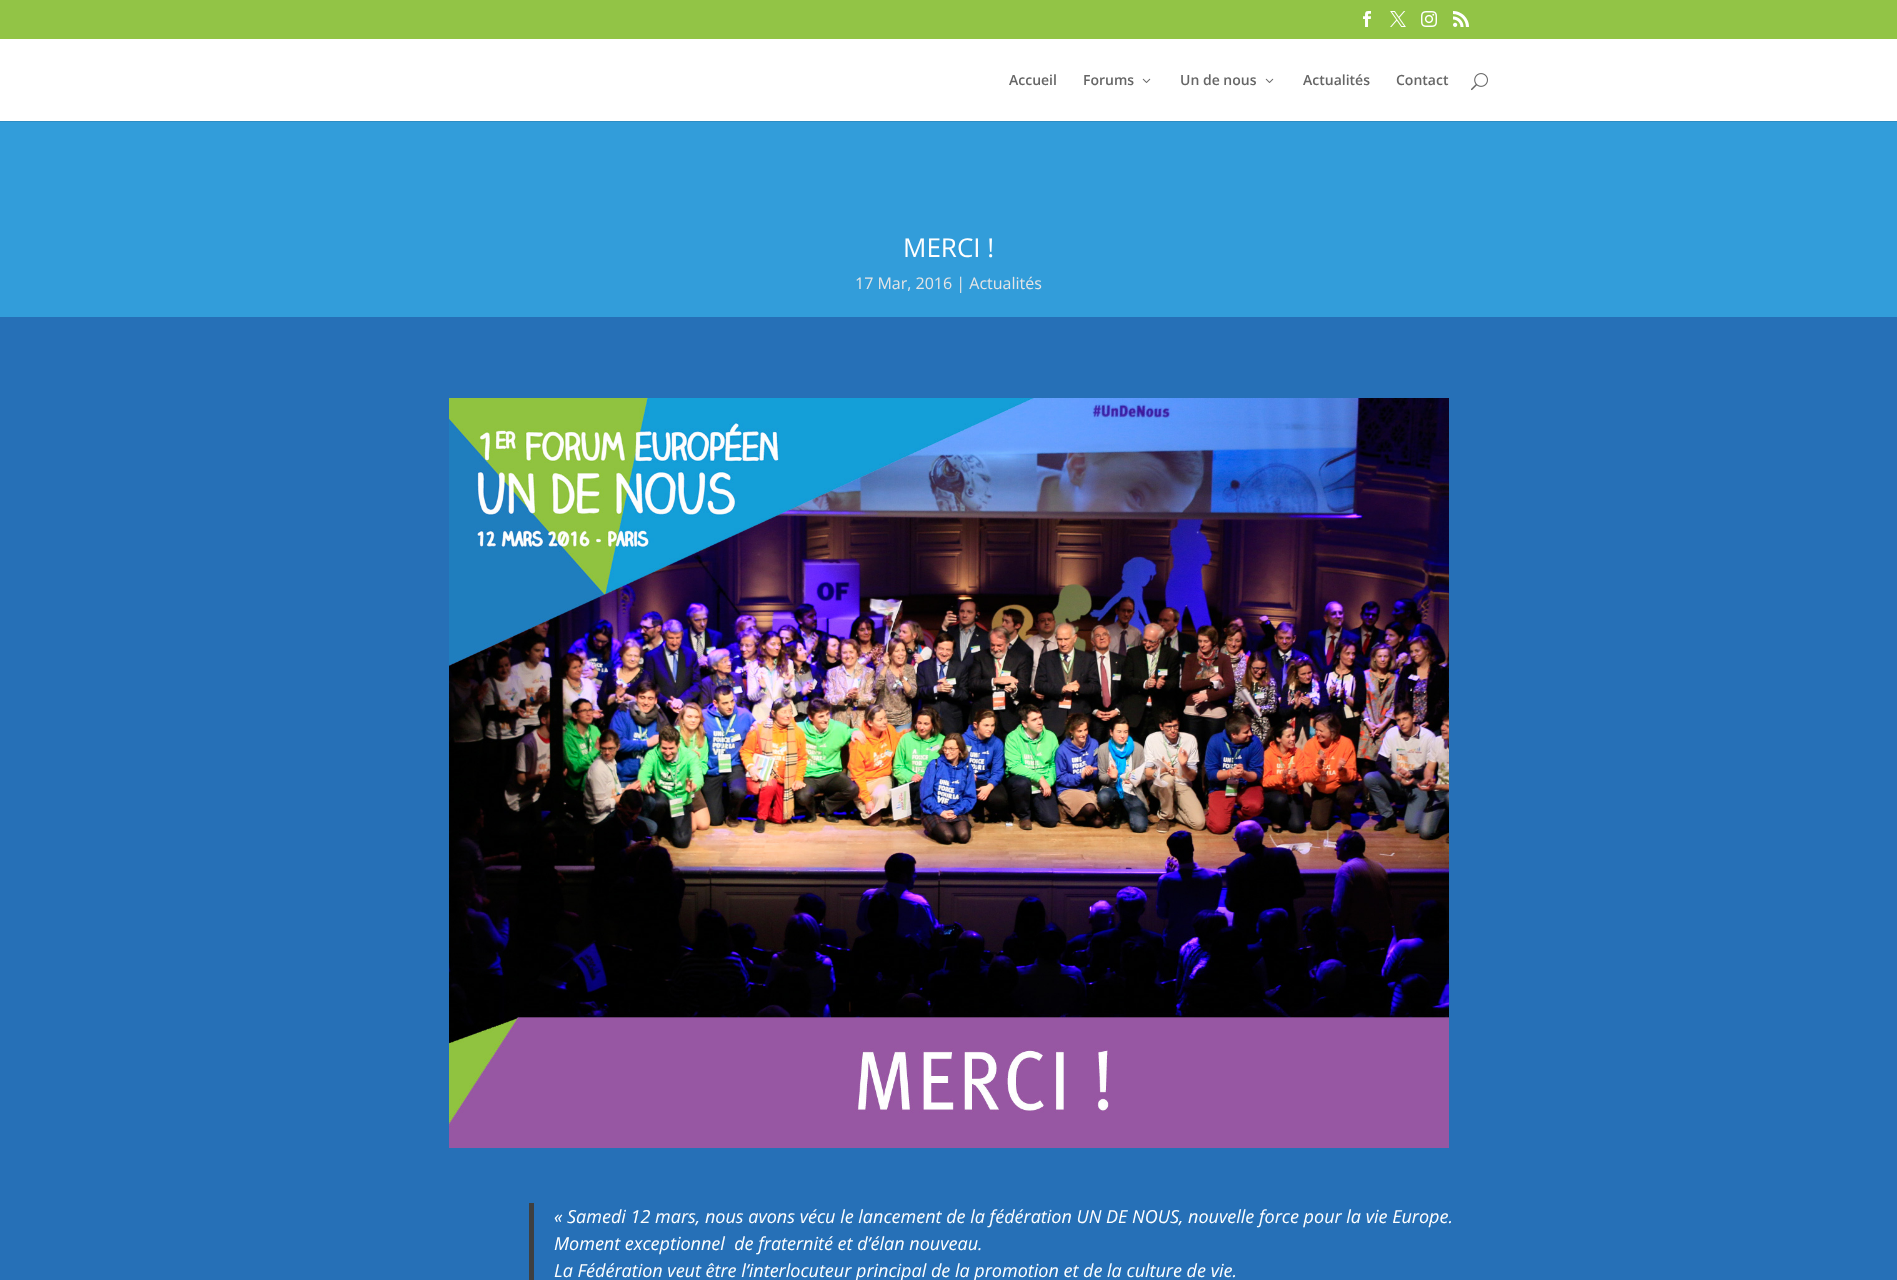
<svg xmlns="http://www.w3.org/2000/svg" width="1897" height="1280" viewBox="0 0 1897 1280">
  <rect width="100%" height="100%" fill="#329dda"/>
  <rect x="0" y="0" width="1897" height="39" fill="#92c446"/>
  <image x="1363" y="11" width="8" height="16" href="img1.png"/>
  <image x="1390" y="11" width="16" height="16" href="img2.png"/>
  <image x="1421" y="11" width="16" height="16" href="img3.png"/>
  <image x="1453" y="11" width="16" height="16" href="img4.png"/>
  <rect x="0" y="121" width="1897" height="1" fill="#2d8dc4"/>
  <rect x="0" y="39" width="1897" height="82" fill="#ffffff"/>
  <text x="1009" y="85" font-family="Open Sans" font-size="14" font-weight="600" fill="#666666">Accueil</text>
  <text x="1083" y="85" font-family="Open Sans" font-size="14" font-weight="600" fill="#666666">Forums</text>
  <image x="1142" y="78" width="9" height="5" href="img5.png"/>
  <text x="1180" y="85" font-family="Open Sans" font-size="14" font-weight="600" fill="#666666">Un de nous</text>
  <image x="1265" y="78" width="9" height="5" href="img5.png"/>
  <text x="1303" y="85" font-family="Open Sans" font-size="14" font-weight="600" fill="#666666">Actualités</text>
  <text x="1396" y="85" font-family="Open Sans" font-size="14" font-weight="600" fill="#666666">Contact</text>
  <image x="1471" y="73" width="17" height="18" href="img6.png"/>
  <text x="903" y="257" font-family="Open Sans" font-size="26" fill="#ffffff">MERCI !</text>
  <text x="855" y="289" font-family="Open Sans" font-size="16" fill="#e5e5e5">17 Mar, 2016 | Actualités</text>
  <rect x="0" y="317" width="1897" height="963" fill="#2670b7"/>
  <image x="449" y="398" width="1000" height="750" href="img7.png"/>
  <rect x="529" y="1203" width="5" height="77" fill="#3f3f3f"/>
  <text x="554" y="1223" font-family="Open Sans" font-size="18" font-style="italic" fill="#ffffff">« Samedi 12 mars, nous avons vécu le lancement de la fédération UN DE NOUS, nouvelle force pour la vie Europe.</text>
  <text x="554" y="1250" font-family="Open Sans" font-size="18" font-style="italic" fill="#ffffff" xml:space="preserve">Moment exceptionnel  de fraternité et d’élan nouveau.</text>
  <text x="554" y="1277" font-family="Open Sans" font-size="18" font-style="italic" fill="#ffffff">La Fédération veut être l’interlocuteur principal de la promotion et de la culture de vie.</text>
</svg>
